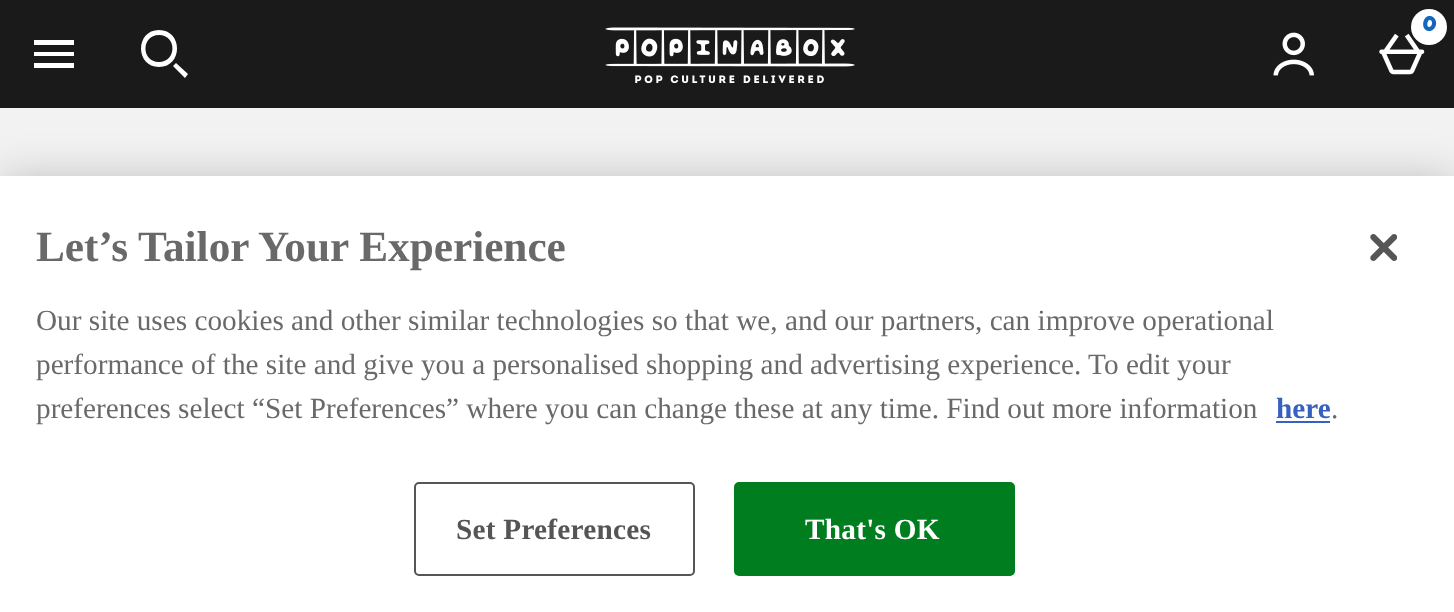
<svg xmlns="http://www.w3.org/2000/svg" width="1454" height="612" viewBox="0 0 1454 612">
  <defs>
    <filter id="blur1" x="-50%" y="-200%" width="200%" height="500%"><feGaussianBlur stdDeviation="20"/></filter>
  </defs>
  <rect width="100%" height="100%" fill="#f2f2f2"/>
  <rect x="0" y="0" width="1454" height="108" fill="#1a1a1a"/>
  <path d="M34 52H74V56H34ZM34 40H74V45H34ZM34 63H74V68H34Z" fill="#ffffff"/>
  <path d="M159 62C177 62 177 35 159 35C141 35 141 62 159 62ZM159 67C135 67 135 30 159 30C183 30 183 67 159 67ZM188 74L185 78L173 66L176 63Z" fill="#ffffff"/>
  <image x="605" y="27" width="250" height="56" href="img1.png"/>
  <image x="1273" y="32" width="41" height="44" href="img2.png"/>
  <image x="1379" y="33" width="46" height="42" href="img4.png"/>
  <circle cx="1429" cy="27" r="18" fill="#ffffff"/>
  <image x="1423" y="15" width="14" height="17" href="img3.png"/>
  <rect x="0" y="176" width="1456" height="436" fill="#000000" fill-opacity="0.2" filter="url(#blur1)"/>
  <rect x="0" y="176" width="1454" height="436" fill="#ffffff"/>
  <text x="36" y="261" font-family="Liberation Serif" font-size="43.25" font-weight="bold" fill="#696969">Let’s Tailor Your Experience</text>
  <text x="36" y="330" font-family="Liberation Serif" font-size="29.25" fill="#696969">Our site uses cookies and other similar technologies so that we, and our partners, can improve operational</text>
  <text x="36" y="374" font-family="Liberation Serif" font-size="29.25" fill="#696969">performance of the site and give you a personalised shopping and advertising experience. To edit your</text>
  <text x="36" y="418" font-family="Liberation Serif" font-size="29.25" fill="#696969">preferences select “Set Preferences” where you can change these at any time. Find out more information</text>
  <text x="1276" y="418" font-family="Liberation Serif" font-size="29.25" font-weight="bold" fill="#3860be">here</text>
  <rect x="1276" y="421" width="54" height="2" fill="#3860be"/>
  <text x="1331" y="418" font-family="Liberation Serif" font-size="29.25" fill="#696969">.</text>
  <rect x="415" y="483" width="279" height="92" rx="4" fill="none" stroke="#555555" stroke-width="2"/>
  <text x="456" y="539" font-family="Liberation Serif" font-size="29.25" font-weight="bold" letter-spacing="0.25" fill="#555555">Set Preferences</text>
  <rect x="735" y="483" width="279" height="92" rx="4" fill="#007d1e" stroke="#007d1e" stroke-width="2"/>
  <text x="805" y="539" font-family="Liberation Serif" font-size="29.25" font-weight="bold" letter-spacing="0.25" fill="#ffffff">That's OK</text>
  <image x="1370" y="234" width="27" height="27" href="img5.png"/>
</svg>
